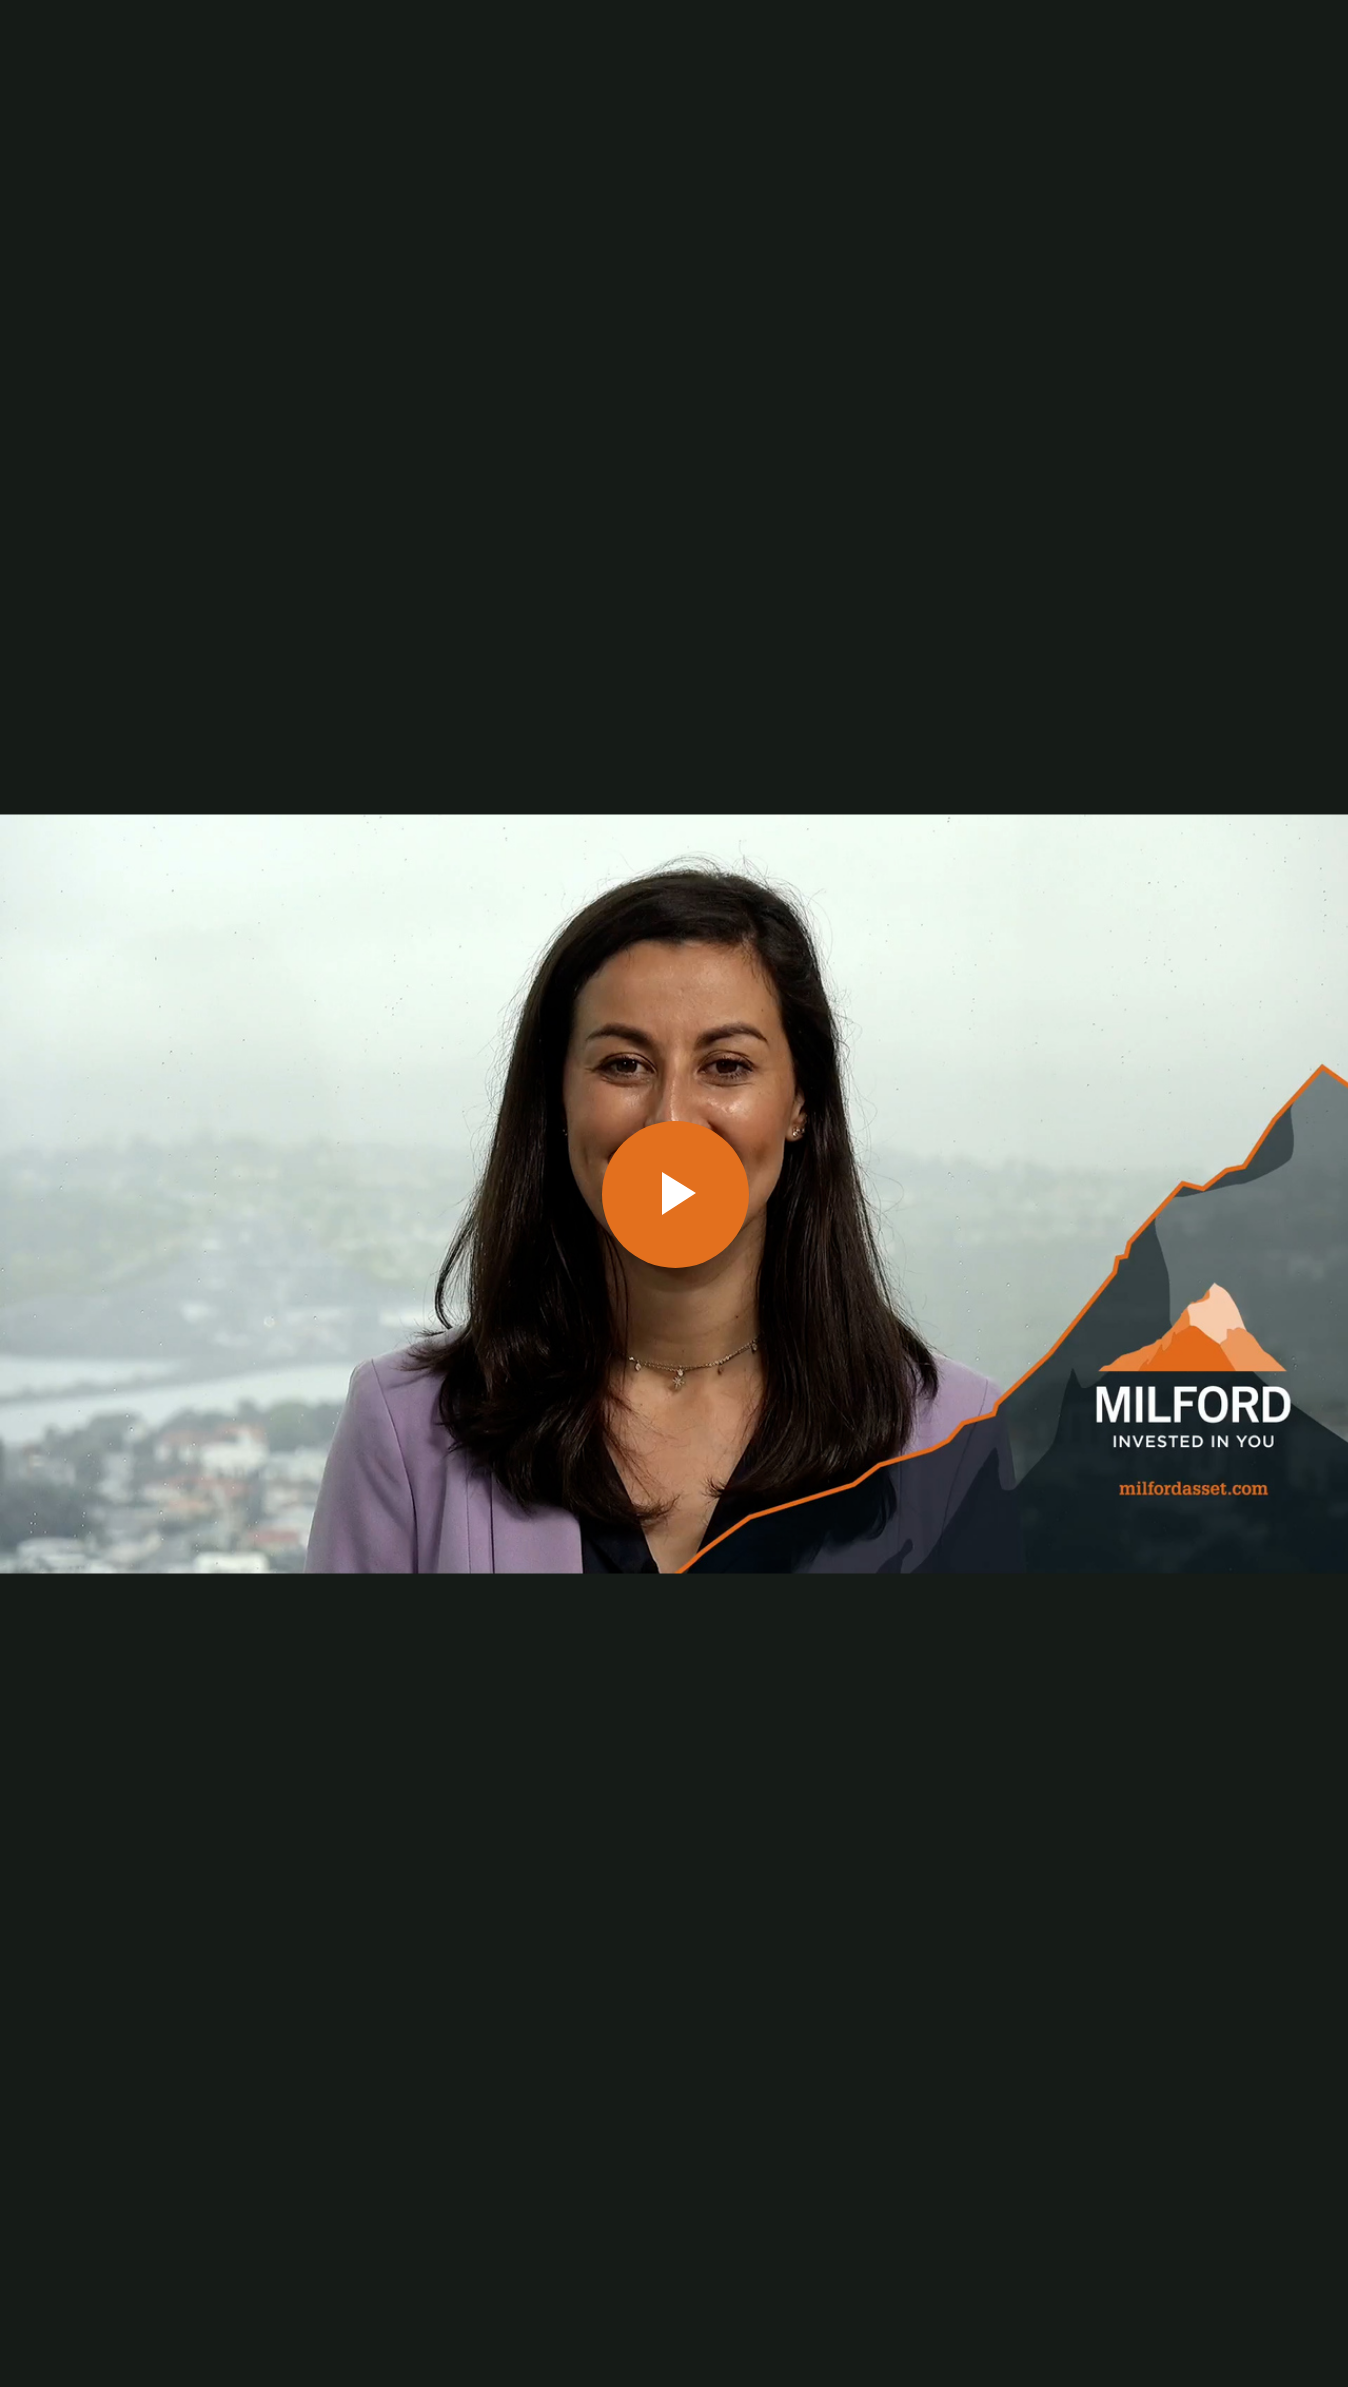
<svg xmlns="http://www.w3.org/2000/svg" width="1348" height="2387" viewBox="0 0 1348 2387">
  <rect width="100%" height="100%" fill="#151b17"/>
  <image x="0" y="814" width="1348" height="760" href="img1.png"/>
  <circle cx="675.5" cy="1194.5" r="73.5" fill="#e3701e"/>
  <path d="M662 1172V1215L696 1193Z" fill="#ffffff"/>
</svg>
